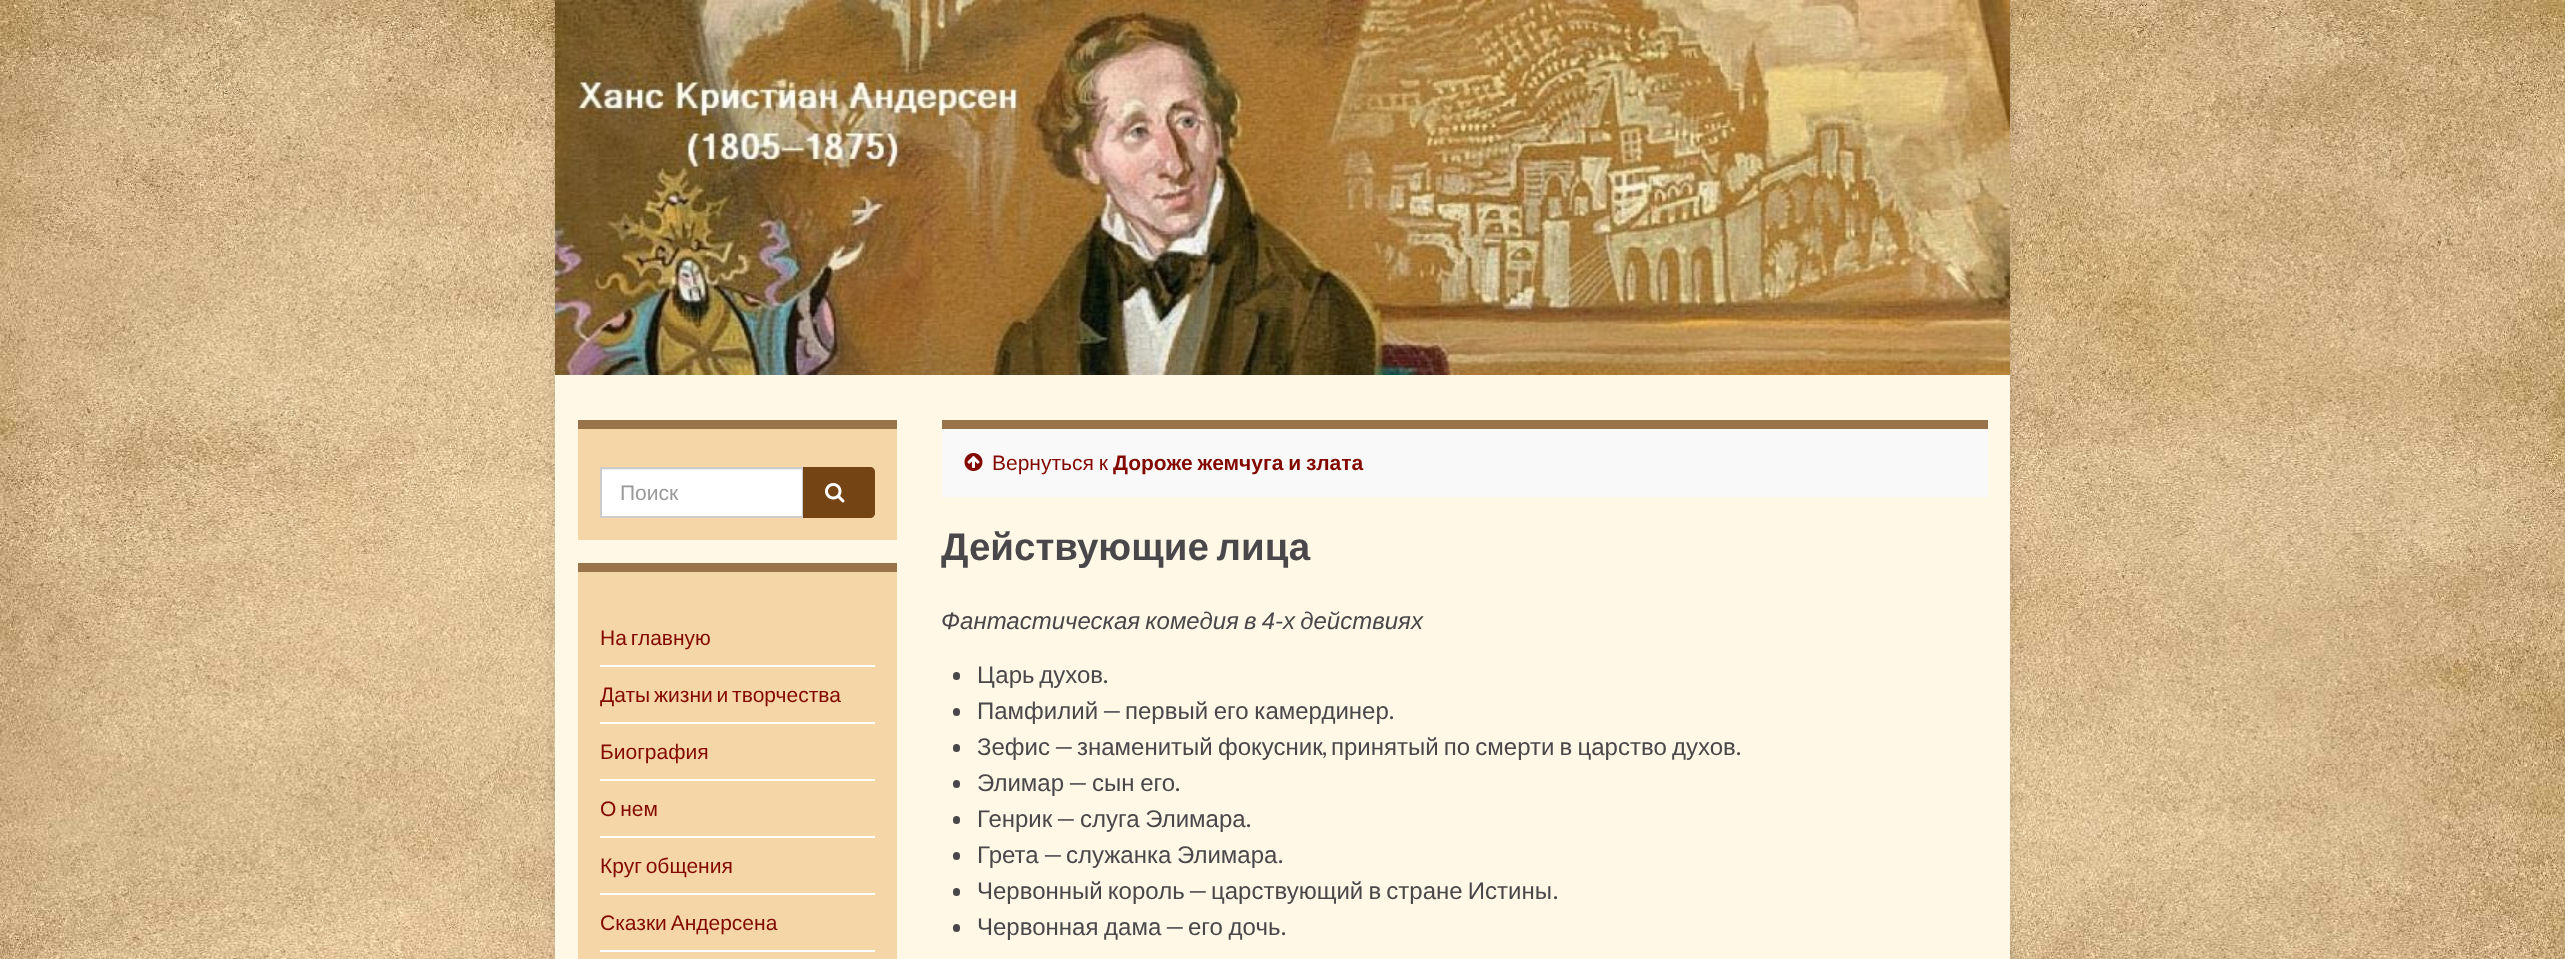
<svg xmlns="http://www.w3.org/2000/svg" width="2565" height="959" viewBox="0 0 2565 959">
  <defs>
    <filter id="blur1" x="-50%" y="-200%" width="200%" height="500%"><feGaussianBlur stdDeviation="7.5"/></filter>
  </defs>
  <rect width="100%" height="100%" fill="#ffffff"/>
  <image x="0" y="0" width="2565" height="959" href="img1.png"/>
  <rect x="555" y="0" width="1455" height="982" fill="#000000" fill-opacity="0.1" filter="url(#blur1)"/>
  <image x="555" y="0" width="1455" height="375" href="img2.png"/>
  <rect x="555" y="375" width="1455" height="584" fill="#fff8e6"/>
  <rect x="578" y="429" width="319" height="111" fill="#f5d6a6"/>
  <rect x="578" y="420" width="319" height="9" fill="#99734a"/>
  <rect x="602" y="470" width="200" height="46" fill="#ffffff"/>
  <rect x="602" y="469" width="201" height="1" fill="#ececec"/>
  <rect x="601" y="468" width="202" height="49" fill="none" stroke="#cccccc" stroke-width="2"/>
  <text x="620" y="500" font-family="Liberation Sans" font-size="21" fill="#999999">Поиск</text>
  <path d="M803 467H870C873 467 875 469 875 472V513C875 516 873 518 870 518H803Z" fill="#744415"/>
  <image x="825" y="483" width="20" height="20" href="img3.png"/>
  <rect x="578" y="572" width="319" height="387" fill="#f5d6a6"/>
  <rect x="578" y="563" width="319" height="9" fill="#99734a"/>
  <rect x="600" y="665" width="275" height="2" fill="#ffffff"/>
  <text x="600" y="645" word-spacing="-2" font-family="Liberation Sans" font-size="21" fill="#820800">На главную</text>
  <rect x="600" y="722" width="275" height="2" fill="#ffffff"/>
  <text x="600" y="702" word-spacing="-2" font-family="Liberation Sans" font-size="21" fill="#820800">Даты жизни и творчества</text>
  <rect x="600" y="779" width="275" height="2" fill="#ffffff"/>
  <text x="600" y="759" font-family="Liberation Sans" font-size="21" fill="#820800">Биография</text>
  <rect x="600" y="836" width="275" height="2" fill="#ffffff"/>
  <text x="600" y="816" word-spacing="-2" font-family="Liberation Sans" font-size="21" fill="#820800">О нем</text>
  <rect x="600" y="893" width="275" height="2" fill="#ffffff"/>
  <text x="600" y="873" word-spacing="-2" font-family="Liberation Sans" font-size="21" fill="#820800">Круг общения</text>
  <rect x="600" y="950" width="275" height="2" fill="#ffffff"/>
  <text x="600" y="930" word-spacing="-2" font-family="Liberation Sans" font-size="21" fill="#820800">Сказки Андерсена</text>
  <rect x="942" y="429" width="1046" height="68" fill="#f9f9f9"/>
  <rect x="942" y="420" width="1046" height="9" fill="#99734a"/>
  <image x="964" y="453" width="19" height="18" href="img4.png"/>
  <text x="992" y="470" word-spacing="-1" font-family="Liberation Sans" font-size="21" fill="#820800">Вернуться к</text>
  <text x="1113" y="470" word-spacing="-1" font-family="Liberation Sans" font-size="21" font-weight="bold" fill="#820800">Дороже жемчуга и злата</text>
  <text x="941" y="560" word-spacing="-3" font-family="Liberation Sans" font-size="38.5" font-weight="bold" fill="#4a474b">Действующие лица</text>
  <text x="941" y="629" word-spacing="-1.5" font-family="Liberation Sans" font-size="24" font-style="italic" fill="#4a474b">Фантастическая комедия в 4-х действиях</text>
  <rect x="953" y="672" width="7" height="8" rx="3.5" fill="#4a474b"/>
  <text x="977" y="683" word-spacing="-2" font-family="Liberation Sans" font-size="24" fill="#4a474b">Царь духов</text>
  <text x="1103" y="683" font-family="Lato" font-size="24" fill="#4a474b">.</text>
  <rect x="953" y="708" width="7" height="8" rx="3.5" fill="#4a474b"/>
  <text x="977" y="719" font-family="Liberation Sans" font-size="24" fill="#4a474b">Памфилий</text>
  <text x="1102" y="719" font-family="Lato" font-size="24" fill="#4a474b">—</text>
  <text x="1125" y="719" word-spacing="-1" font-family="Liberation Sans" font-size="24" fill="#4a474b">первый его камердинер</text>
  <text x="1389" y="719" font-family="Lato" font-size="24" fill="#4a474b">.</text>
  <rect x="953" y="744" width="7" height="8" rx="3.5" fill="#4a474b"/>
  <text x="977" y="755" font-family="Liberation Sans" font-size="24" fill="#4a474b">Зефис</text>
  <text x="1054" y="755" font-family="Lato" font-size="24" fill="#4a474b">—</text>
  <text x="1077" y="755" word-spacing="-1.5" font-family="Liberation Sans" font-size="24" fill="#4a474b">знаменитый фокусник</text>
  <text x="1331" y="755" word-spacing="-1.5" font-family="Liberation Sans" font-size="24" fill="#4a474b">принятый по смерти в царство духов</text>
  <text x="1322" y="755" font-family="Lato" font-size="24" fill="#4a474b">,</text>
  <text x="1736" y="755" font-family="Lato" font-size="24" fill="#4a474b">.</text>
  <rect x="953" y="780" width="7" height="8" rx="3.5" fill="#4a474b"/>
  <text x="977" y="791" font-family="Liberation Sans" font-size="24" fill="#4a474b">Элимар</text>
  <text x="1068" y="791" font-family="Lato" font-size="24" fill="#4a474b">—</text>
  <text x="1092" y="791" word-spacing="-1" font-family="Liberation Sans" font-size="24" fill="#4a474b">сын его</text>
  <text x="1175" y="791" font-family="Lato" font-size="24" fill="#4a474b">.</text>
  <rect x="953" y="816" width="7" height="8" rx="3.5" fill="#4a474b"/>
  <text x="977" y="827" font-family="Liberation Sans" font-size="24" fill="#4a474b">Генрик</text>
  <text x="1056" y="827" font-family="Lato" font-size="24" fill="#4a474b">—</text>
  <text x="1080" y="827" word-spacing="-1" font-family="Liberation Sans" font-size="24" fill="#4a474b">слуга Элимара</text>
  <text x="1246" y="827" font-family="Lato" font-size="24" fill="#4a474b">.</text>
  <rect x="953" y="852" width="7" height="8" rx="3.5" fill="#4a474b"/>
  <text x="977" y="863" font-family="Liberation Sans" font-size="24" fill="#4a474b">Грета</text>
  <text x="1043" y="863" font-family="Lato" font-size="24" fill="#4a474b">—</text>
  <text x="1066" y="863" word-spacing="-1" font-family="Liberation Sans" font-size="24" fill="#4a474b">служанка Элимара</text>
  <text x="1278" y="863" font-family="Lato" font-size="24" fill="#4a474b">.</text>
  <rect x="953" y="888" width="7" height="8" rx="3.5" fill="#4a474b"/>
  <text x="977" y="899" word-spacing="-1.5" font-family="Liberation Sans" font-size="24" fill="#4a474b">Червонный король</text>
  <text x="1188" y="899" font-family="Lato" font-size="24" fill="#4a474b">—</text>
  <text x="1211" y="899" word-spacing="-1.5" font-family="Liberation Sans" font-size="24" fill="#4a474b">царствующий в стране Истины</text>
  <text x="1553" y="899" font-family="Lato" font-size="24" fill="#4a474b">.</text>
  <rect x="953" y="924" width="7" height="8" rx="3.5" fill="#4a474b"/>
  <text x="977" y="935" word-spacing="-1" font-family="Liberation Sans" font-size="24" fill="#4a474b">Червонная дама</text>
  <text x="1165" y="935" font-family="Lato" font-size="24" fill="#4a474b">—</text>
  <text x="1188" y="935" word-spacing="-1" font-family="Liberation Sans" font-size="24" fill="#4a474b">его дочь</text>
  <text x="1281" y="935" font-family="Lato" font-size="24" fill="#4a474b">.</text>
</svg>
